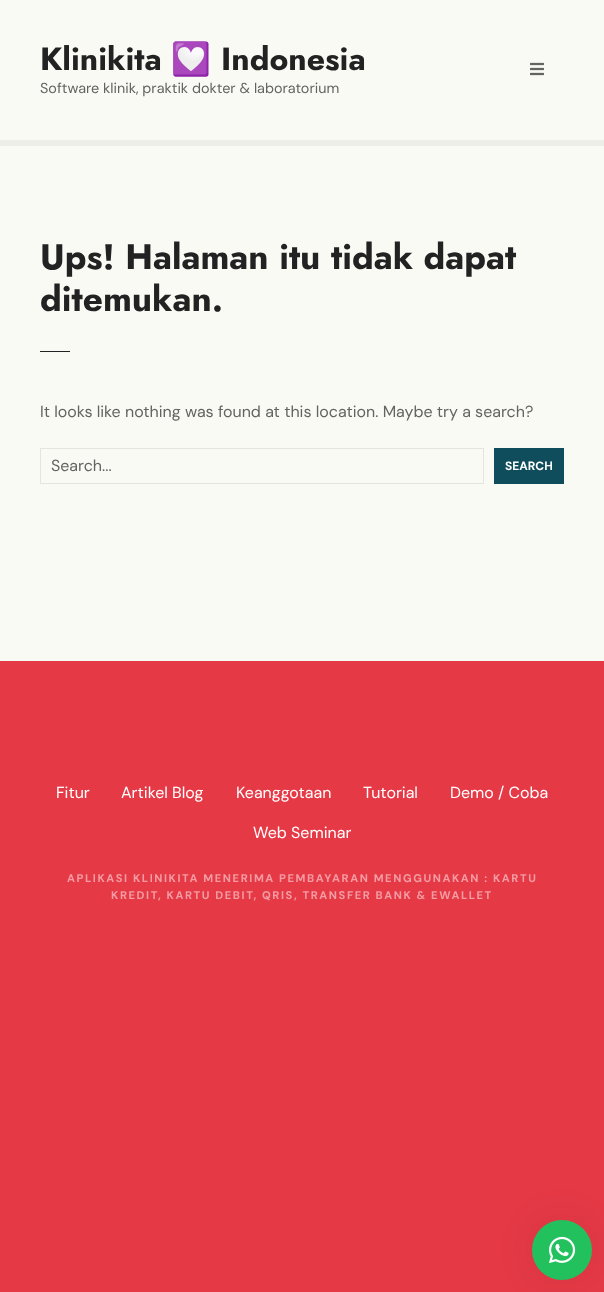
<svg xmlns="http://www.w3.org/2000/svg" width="604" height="1292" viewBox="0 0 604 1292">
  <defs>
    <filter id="blur1" x="-50%" y="-200%" width="200%" height="500%"><feGaussianBlur stdDeviation="25"/></filter>
  </defs>
  <rect width="100%" height="100%" fill="#e63946"/>
  <rect x="0" y="0" width="604" height="661" fill="#fafaf5"/>
  <text x="40" y="70" font-family="Jost" font-size="32" font-weight="bold" fill="#222222">Klinikita</text>
  <text x="171" y="70" font-family="Noto Color Emoji" font-size="32" font-weight="bold" fill="#222222">💟</text>
  <text x="221" y="70" font-family="Jost" font-size="32" font-weight="bold" fill="#222222">Indonesia</text>
  <text x="40" y="93" font-family="DM Sans" font-size="14.4" fill="#636361">Software klinik, praktik dokter &amp; laboratorium</text>
  <image x="530" y="62" width="14" height="14" href="img1.png"/>
  <rect x="0" y="140" width="604" height="6" fill="#eeeee9"/>
  <text x="40" y="269" font-family="Jost" font-size="35.25" font-weight="bold" fill="#222222">Ups! Halaman itu tidak dapat</text>
  <text x="40" y="311" font-family="Jost" font-size="35.25" font-weight="bold" fill="#222222">ditemukan.</text>
  <rect x="40" y="351" width="30" height="1" fill="#222222"/>
  <text x="40" y="417" font-family="DM Sans" font-size="16" fill="#636361">It looks like nothing was found at this location. Maybe try a search?</text>
  <rect x="40.5" y="448.5" width="443" height="35" fill="none" stroke="#e4e4e0"/>
  <text x="51" y="471" font-family="DM Sans" font-size="16" fill="#636361">Search...</text>
  <rect x="494" y="448" width="70" height="36" fill="#0f4c5c"/>
  <text x="505" y="470" font-family="DM Sans" font-size="12" font-weight="bold" fill="#ffffff">SEARCH</text>
  <text x="56" y="798" font-family="DM Sans" font-size="16" fill="#ffffff">Fitur</text>
  <text x="121" y="798" font-family="DM Sans" font-size="16" fill="#ffffff">Artikel Blog</text>
  <text x="236" y="798" font-family="DM Sans" font-size="16" fill="#ffffff">Keanggotaan</text>
  <text x="363" y="798" font-family="DM Sans" font-size="16" fill="#ffffff">Tutorial</text>
  <text x="450" y="798" font-family="DM Sans" font-size="16" fill="#ffffff">Demo / Coba</text>
  <text x="253" y="838" font-family="DM Sans" font-size="16" fill="#ffffff">Web Seminar</text>
  <text x="67" y="882" font-family="DM Sans" font-size="11.2" font-weight="bold" letter-spacing="1.57" fill="#f39ca3">APLIKASI KLINIKITA MENERIMA PEMBAYARAN MENGGUNAKAN : KARTU</text>
  <text x="111" y="899" font-family="DM Sans" font-size="11.2" font-weight="bold" letter-spacing="1.57" fill="#f39ca3">KREDIT, KARTU DEBIT, QRIS, TRANSFER BANK &amp; EWALLET</text>
  <rect x="532" y="1220" width="60" height="60" rx="30" fill="#000000" fill-opacity="0.1" filter="url(#blur1)"/>
  <circle cx="562" cy="1250" r="30" fill="#22c15e"/>
  <image x="549" y="1236" width="27" height="27" href="img2.png"/>
</svg>
